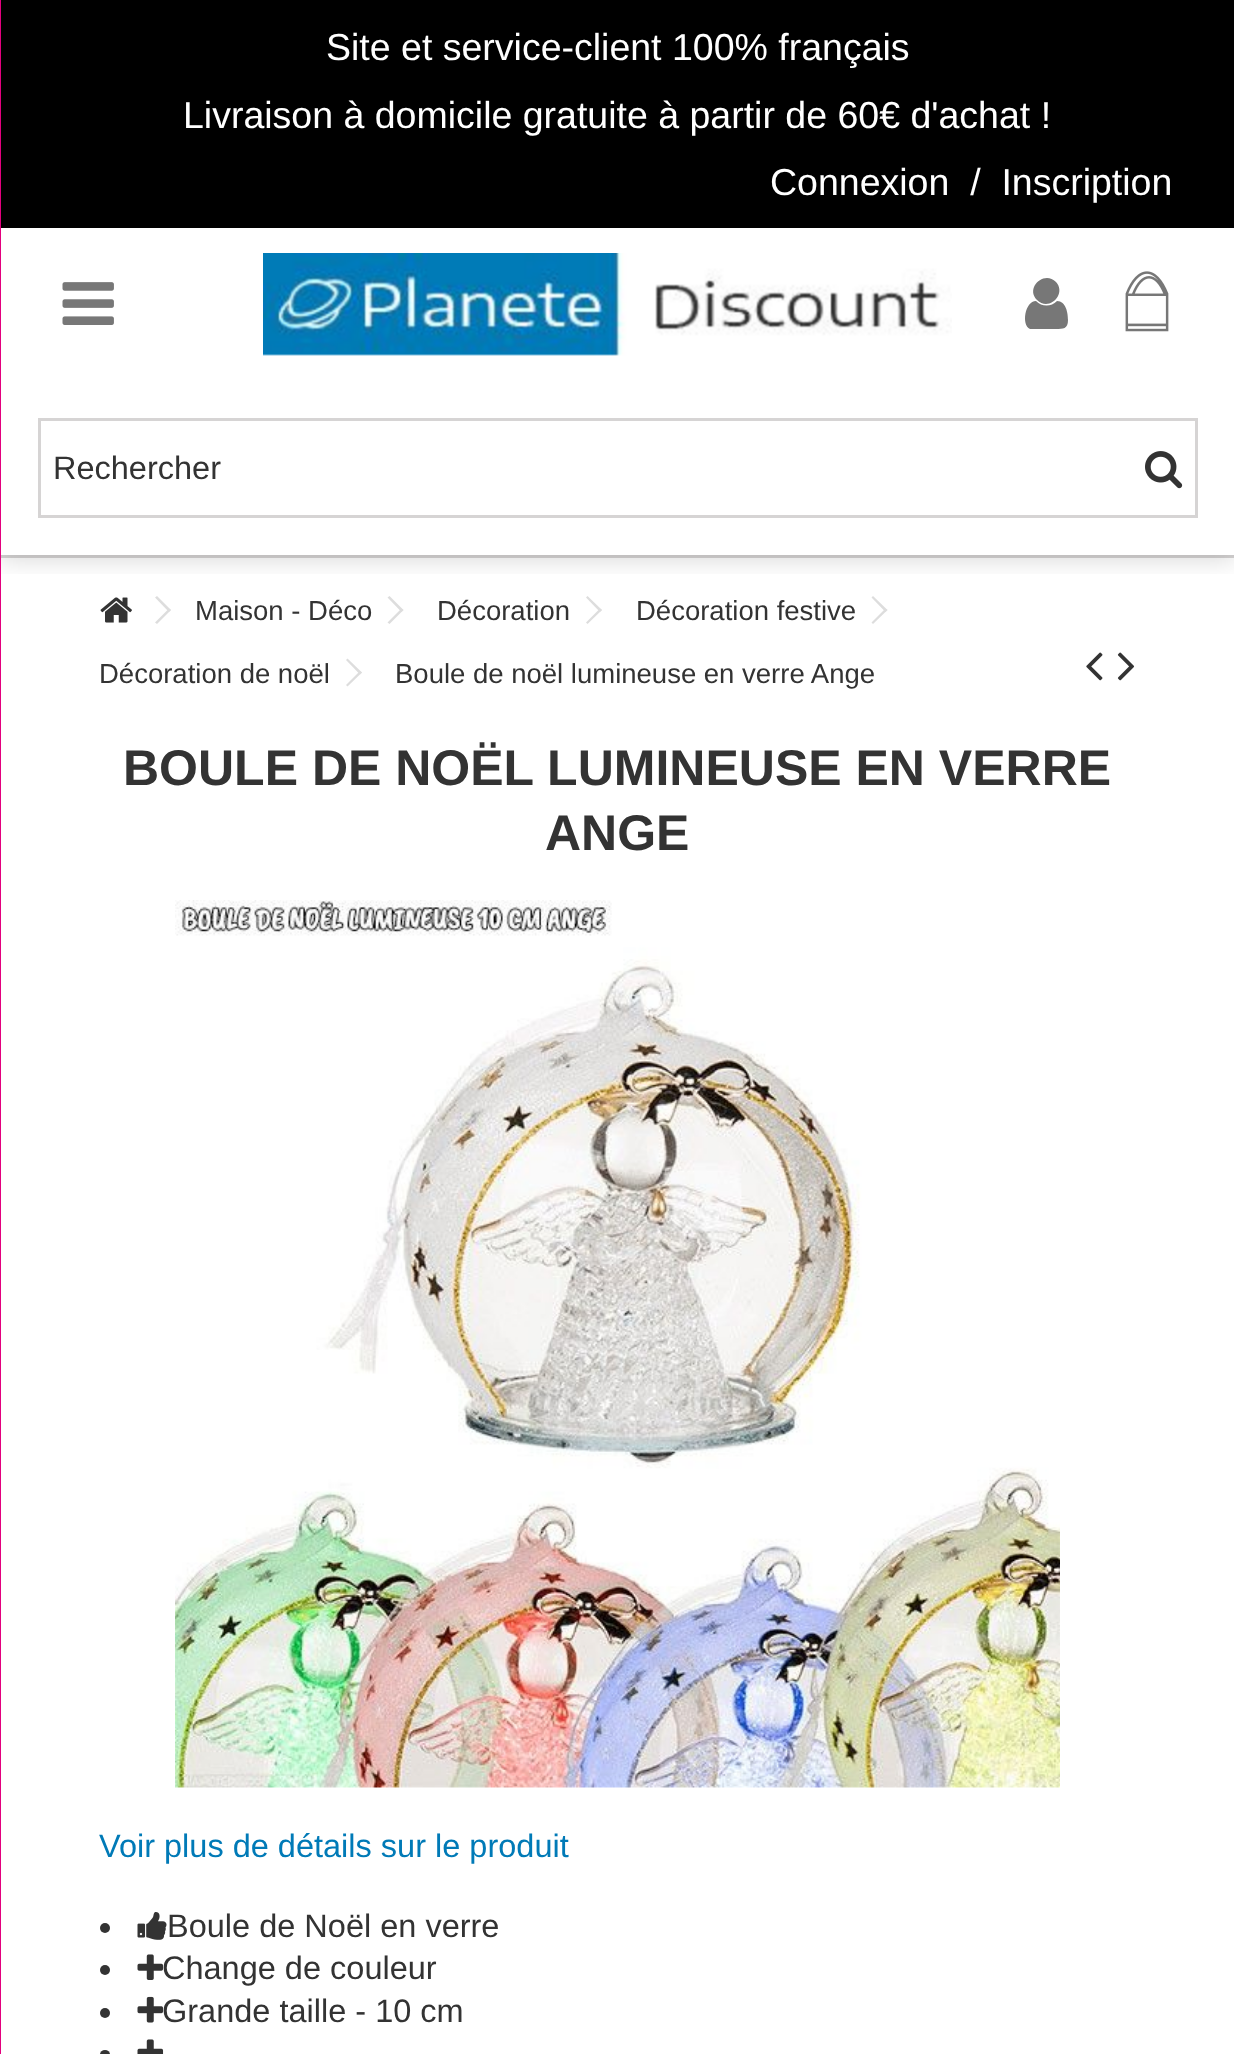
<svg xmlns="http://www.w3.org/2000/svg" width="1234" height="2054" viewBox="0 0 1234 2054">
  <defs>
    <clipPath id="clip1"><rect x="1" y="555" width="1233" height="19"/></clipPath>
    <filter id="blur1" x="-50%" y="-200%" width="200%" height="500%"><feGaussianBlur stdDeviation="12.5"/></filter>
  </defs>
  <rect width="100%" height="100%" fill="#ffffff"/>
  <rect x="0" y="555" width="1234" height="3" fill="#d6d4d4"/>
  <image x="100" y="597" width="32" height="26" href="img5.png"/>
  <path d="M157 596L171 610L169 612L155 597.5Z" fill="#dddddd"/>
  <path d="M389.5 596L403.5 610L401.5 612L387.5 597.5Z" fill="#dddddd"/>
  <path d="M587.5 596L602 610L600 612L586 597.5Z" fill="#dddddd"/>
  <path d="M873 596L887.5 610L885.5 612L871.5 597.5Z" fill="#dddddd"/>
  <g clip-path="url(#clip1)">
    <rect x="0" y="385" width="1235" height="175" fill="#000000" fill-opacity="0.15" filter="url(#blur1)"/>
  </g>
  <rect x="0" y="0" width="1" height="2054" fill="#e3007e"/>
  <rect x="1" y="0" width="1233" height="228" fill="#000000"/>
  <text x="326" y="60" font-family="Liberation Sans" font-size="37.5" fill="#ffffff">Site et service-client 100% français</text>
  <text x="183" y="128" font-family="Liberation Sans" font-size="37.5" fill="#ffffff">Livraison à domicile gratuite à partir de 60€ d'achat !</text>
  <text x="770" y="195" font-family="Liberation Sans" font-size="37.5" fill="#ffffff" xml:space="preserve">Connexion  /  Inscription</text>
  <rect x="1" y="366" width="1233" height="14" fill="#ffffff"/>
  <image x="62" y="282" width="52" height="43" href="img1.png"/>
  <image x="263" y="253" width="689" height="103" href="img2.png"/>
  <path d="M1068 320C1068 329 1063 329 1056 329H1030C1021 325 1025 301 1036 301C1042 307 1051 307 1057 301C1066 301 1068 313 1068 320ZM1056 282C1067 294 1049 312 1037 300C1025 288 1044 270 1056 282Z" fill="#777777"/>
  <image x="1125" y="271" width="44" height="61" href="img3.png"/>
  <rect x="39.5" y="419.5" width="1157" height="97" fill="none" stroke="#d6d4d4" stroke-width="3"/>
  <text x="53" y="479" font-family="Liberation Sans" font-size="32.5" fill="#333333">Rechercher</text>
  <image x="1145" y="451" width="38" height="38" href="img4.png"/>
  <path d="M169 608.5L171 610L157 624L155 622.5Z" fill="#dddddd"/>
  <text x="195" y="620" font-family="Liberation Sans" font-size="27.5" fill="#333333">Maison - Déco</text>
  <path d="M401.5 608.5L403.5 610L389.5 624L387.5 622.5Z" fill="#dddddd"/>
  <text x="437" y="620" font-family="Liberation Sans" font-size="27.5" fill="#333333">Décoration</text>
  <path d="M600 608.5L602 610L587.5 624L586 622.5Z" fill="#dddddd"/>
  <text x="636" y="620" font-family="Liberation Sans" font-size="27.5" fill="#333333">Décoration festive</text>
  <path d="M885.5 608.5L887.5 610L873 624L871.5 622.5Z" fill="#dddddd"/>
  <text x="99" y="683" font-family="Liberation Sans" font-size="27.5" fill="#333333">Décoration de noël</text>
  <path d="M347.5 658.5L362 672.5L360 674.5L346 660Z" fill="#dddddd"/>
  <path d="M360 671L362 672.5L347.5 686.5L346 685Z" fill="#dddddd"/>
  <text x="395" y="683" font-family="Liberation Sans" font-size="27.5" fill="#333333">Boule de noël lumineuse en verre Ange</text>
  <image x="1086" y="652" width="17" height="29" href="img6.png"/>
  <image x="1117" y="652" width="18" height="29" href="img7.png"/>
  <text x="123" y="785" font-family="Liberation Sans" font-size="50" font-weight="bold" fill="#333333">BOULE DE NOËL LUMINEUSE EN VERRE</text>
  <text x="545" y="850" font-family="Liberation Sans" font-size="50" font-weight="bold" fill="#333333">ANGE</text>
  <image x="175" y="900" width="885" height="888" href="img8.png"/>
  <text x="99" y="1857" font-family="Liberation Sans" font-size="32.5" fill="#007ab7">Voir plus de détails sur le produit</text>
  <circle cx="105" cy="1928" r="5" fill="#333333"/>
  <image x="137" y="1912" width="30" height="28" href="img9.png"/>
  <text x="167" y="1937" font-family="Liberation Sans" font-size="32.5" fill="#333333">Boule de Noël en verre</text>
  <circle cx="105" cy="1970" r="5" fill="#333333"/>
  <text x="162" y="1979" font-family="Liberation Sans" font-size="32.5" fill="#333333">Change de couleur</text>
  <image x="137" y="1954" width="27" height="26" href="img10.png"/>
  <circle cx="105" cy="2013" r="5" fill="#333333"/>
  <text x="162" y="2022" font-family="Liberation Sans" font-size="32.5" fill="#333333">Grande taille - 10 cm</text>
  <image x="137" y="1996" width="27" height="27" href="img11.png"/>
  <rect x="100" y="2050" width="10" height="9" rx="5" fill="#333333"/>
  <image x="137" y="2039" width="27" height="15" href="img12.png"/>
</svg>
